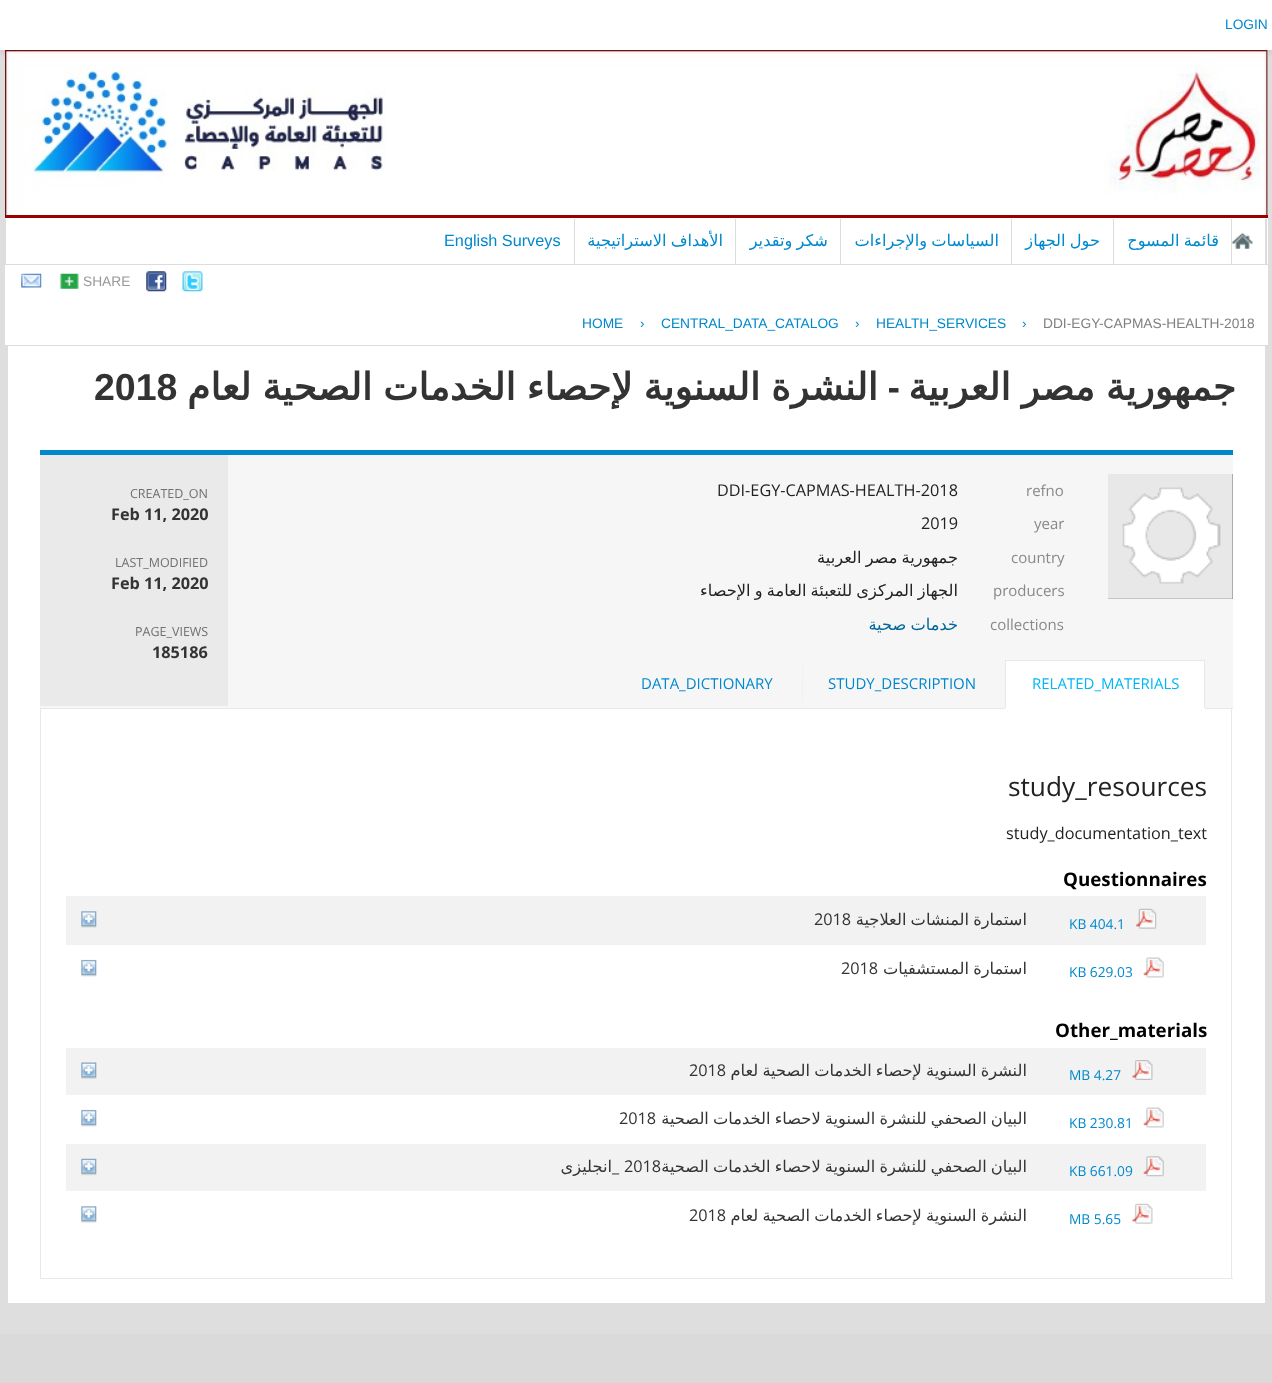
<svg xmlns="http://www.w3.org/2000/svg" width="1272" height="1383" viewBox="0 0 1272 1383">
  <defs>
    <filter id="blur1" x="-50%" y="-200%" width="200%" height="500%"><feGaussianBlur stdDeviation="3"/></filter>
  </defs>
  <rect width="100%" height="100%" fill="#dedede"/>
  <rect x="0" y="3" width="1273" height="50" fill="#000000" fill-opacity="0.1" filter="url(#blur1)"/>
  <rect x="0" y="0" width="1272" height="50" fill="#ffffff"/>
  <text x="1225" y="29" font-family="Liberation Sans" font-size="13.75" fill="#0088cc">LOGIN</text>
  <rect x="5" y="50" width="1263" height="295" fill="#ffffff"/>
  <image x="5" y="50" width="1263" height="165" href="img1.png"/>
  <rect x="5" y="215" width="1263" height="3" fill="#990000"/>
  <rect x="1266" y="219" width="1" height="46" fill="#dcdcdc"/>
  <rect x="5" y="264" width="1263" height="1" fill="#dcdcdc"/>
  <rect x="5" y="219" width="1" height="46" fill="#dcdcdc"/>
  <image x="1232" y="232" width="21" height="17" href="img2.png"/>
  <rect x="1265" y="219" width="1" height="45" fill="#dcdcdc"/>
  <rect x="1231" y="219" width="1" height="45" fill="#dcdcdc"/>
  <text x="1219" y="246" word-spacing="-1" font-family="DejaVu Sans" font-size="16.25" direction="rtl" fill="#0088cc">قائمة المسوح</text>
  <rect x="1113" y="219" width="1" height="45" fill="#dcdcdc"/>
  <text x="1100" y="246" word-spacing="-1" font-family="DejaVu Sans" font-size="16.25" direction="rtl" fill="#0088cc">حول الجهاز</text>
  <rect x="1011" y="219" width="1" height="45" fill="#dcdcdc"/>
  <text x="999" y="246" word-spacing="-1" font-family="DejaVu Sans" font-size="16.25" direction="rtl" fill="#0088cc">السياسات والإجراءات</text>
  <rect x="840" y="219" width="1" height="45" fill="#dcdcdc"/>
  <text x="828" y="246" word-spacing="-1" font-family="DejaVu Sans" font-size="16.25" direction="rtl" fill="#0088cc">شكر وتقدير</text>
  <rect x="735" y="219" width="1" height="45" fill="#dcdcdc"/>
  <text x="723" y="246" word-spacing="-1" font-family="DejaVu Sans" font-size="16.25" direction="rtl" fill="#0088cc">الأهداف الاستراتيجية</text>
  <rect x="574" y="219" width="1" height="45" fill="#dcdcdc"/>
  <text x="444" y="246" font-family="Liberation Sans" font-size="16.25" fill="#0088cc">English Surveys</text>
  <image x="182" y="271" width="21" height="21" href="img3.png"/>
  <image x="146" y="271" width="21" height="21" href="img4.png"/>
  <text x="83" y="286" font-family="Liberation Sans" font-size="13.75" fill="#999999">SHARE</text>
  <image x="59" y="273" width="20" height="16" href="img5.png"/>
  <image x="21" y="273" width="21" height="15" href="img6.png"/>
  <text x="1043" y="328" font-family="Liberation Sans" font-size="13.75" fill="#808080">DDI-EGY-CAPMAS-HEALTH-2018</text>
  <text x="1022" y="328" font-family="Liberation Sans" font-size="13.75" fill="#0088cc">›</text>
  <text x="876" y="328" font-family="Liberation Sans" font-size="13.75" fill="#0088cc">HEALTH_SERVICES</text>
  <text x="855" y="328" font-family="Liberation Sans" font-size="13.75" fill="#0088cc">›</text>
  <text x="661" y="328" font-family="Liberation Sans" font-size="13.75" fill="#0088cc">CENTRAL_DATA_CATALOG</text>
  <text x="640" y="328" font-family="Liberation Sans" font-size="13.75" fill="#0088cc">›</text>
  <text x="582" y="328" font-family="Liberation Sans" font-size="13.75" fill="#0088cc">HOME</text>
  <rect x="8" y="346" width="1257" height="957" fill="#ffffff"/>
  <text x="1236" y="400" word-spacing="-1" font-family="DejaVu Sans" font-size="37.5" font-weight="bold" direction="rtl" fill="#333333">جمهورية مصر العربية</text>
  <text x="900" y="400" font-family="Liberation Sans" font-size="37.5" font-weight="bold" direction="rtl" fill="#333333">-</text>
  <text x="878" y="400" word-spacing="-1" font-family="DejaVu Sans" font-size="37.5" font-weight="bold" direction="rtl" fill="#333333">النشرة السنوية لإحصاء الخدمات الصحية لعام</text>
  <text x="94" y="400" font-family="Liberation Sans" font-size="37.5" font-weight="bold" fill="#333333">2018</text>
  <rect x="228" y="455" width="1005" height="251" fill="#f6f6f6"/>
  <rect x="40" y="450" width="1193" height="5" fill="#0088cc"/>
  <rect x="1108" y="474" width="125" height="125" fill="#999999"/>
  <image x="1108" y="474" width="125" height="125" href="img7.png"/>
  <text x="1026" y="496" font-family="Open Sans" font-size="15" fill="#898989">refno</text>
  <text x="717" y="496" font-family="Open Sans" font-size="16.25" fill="#222222">DDI-EGY-CAPMAS-HEALTH-2018</text>
  <text x="1034" y="529" font-family="Open Sans" font-size="15" fill="#898989">year</text>
  <text x="921" y="529" font-family="Open Sans" font-size="16.25" fill="#222222">2019</text>
  <text x="1011" y="563" font-family="Open Sans" font-size="15" fill="#898989">country</text>
  <text x="958" y="563" word-spacing="-1" font-family="DejaVu Sans" font-size="16.25" direction="rtl" fill="#222222">جمهورية مصر العربية</text>
  <text x="993" y="596" font-family="Open Sans" font-size="15" fill="#898989">producers</text>
  <text x="958" y="596" word-spacing="-1" font-family="DejaVu Sans" font-size="16.25" direction="rtl" fill="#222222">الجهاز المركزى للتعبئة العامة و الإحصاء</text>
  <text x="990" y="630" font-family="Open Sans" font-size="15" fill="#898989">collections</text>
  <text x="958" y="630" word-spacing="-1" font-family="DejaVu Sans" font-size="16.25" direction="rtl" fill="#00679c">خدمات صحية</text>
  <rect x="40" y="455" width="188" height="251" fill="#eaeaea"/>
  <text x="130" y="498" font-family="Open Sans" font-size="12.5" fill="#707070">CREATED_ON</text>
  <text x="111" y="520" font-family="Open Sans" font-size="16.25" font-weight="bold" fill="#333333">Feb 11, 2020</text>
  <text x="115" y="567" font-family="Open Sans" font-size="12.5" fill="#707070">LAST_MODIFIED</text>
  <text x="111" y="589" font-family="Open Sans" font-size="16.25" font-weight="bold" fill="#333333">Feb 11, 2020</text>
  <text x="135" y="636" font-family="Open Sans" font-size="12.5" fill="#707070">PAGE_VIEWS</text>
  <text x="152" y="658" font-family="Open Sans" font-size="16.25" font-weight="bold" fill="#333333">185186</text>
  <rect x="40" y="706" width="1193" height="2" fill="#f6f6f6"/>
  <rect x="40" y="708" width="1193" height="1" fill="#e8e8e8"/>
  <rect x="1005" y="661" width="200" height="48" fill="#ffffff"/>
  <rect x="1005" y="660" width="200" height="1" fill="#e8e8e8"/>
  <rect x="1204" y="660" width="1" height="48" fill="#e8e8e8"/>
  <rect x="1005" y="660" width="1" height="48" fill="#e8e8e8"/>
  <text x="1032" y="689" font-family="Open Sans" font-size="15" fill="#00b6f5">RELATED_MATERIALS</text>
  <image x="802" y="660" width="1" height="48" href="img8.png"/>
  <text x="828" y="689" font-family="Open Sans" font-size="15" fill="#0088cc">STUDY_DESCRIPTION</text>
  <text x="641" y="689" font-family="Open Sans" font-size="15" fill="#0088cc">DATA_DICTIONARY</text>
  <rect x="1231" y="709" width="1" height="570" fill="#e8e8e8"/>
  <rect x="40" y="1278" width="1193" height="1" fill="#e8e8e8"/>
  <rect x="40" y="709" width="1" height="570" fill="#e8e8e8"/>
  <text x="1008" y="796" font-family="Open Sans" font-size="26.25" fill="#222222">study_resources</text>
  <text x="1006" y="839" font-family="Open Sans" font-size="16.25" fill="#222222">study_documentation_text</text>
  <text x="1063" y="886" font-family="Open Sans" font-size="18.75" font-weight="bold" fill="#000000">Questionnaires</text>
  <rect x="66" y="896" width="1140" height="49" fill="#f2f2f2"/>
  <image x="1136" y="908" width="21" height="21" href="img9.png"/>
  <text x="1069" y="929" font-family="Open Sans" font-size="13.75" fill="#0088cc">KB 404.1</text>
  <image x="81" y="911" width="16" height="17" href="img10.png"/>
  <text x="1027" y="925" word-spacing="-1" font-family="DejaVu Sans" font-size="16.25" direction="rtl" fill="#333333">استمارة المنشات العلاجية</text>
  <text x="814" y="925" font-family="Open Sans" font-size="16.25" fill="#333333">2018</text>
  <image x="1143" y="957" width="21" height="21" href="img11.png"/>
  <text x="1069" y="977" font-family="Open Sans" font-size="13.75" fill="#0088cc">KB 629.03</text>
  <image x="81" y="959" width="16" height="18" href="img12.png"/>
  <text x="1027" y="974" word-spacing="-1" font-family="DejaVu Sans" font-size="16.25" direction="rtl" fill="#333333">استمارة المستشفيات</text>
  <text x="841" y="974" font-family="Open Sans" font-size="16.25" fill="#333333">2018</text>
  <text x="1055" y="1037" font-family="Open Sans" font-size="18.75" font-weight="bold" fill="#000000">Other_materials</text>
  <rect x="66" y="1048" width="1140" height="47" fill="#f2f2f2"/>
  <image x="1132" y="1060" width="21" height="20" href="img13.png"/>
  <text x="1069" y="1080" font-family="Open Sans" font-size="13.75" fill="#0088cc">MB 4.27</text>
  <image x="81" y="1062" width="16" height="17" href="img14.png"/>
  <text x="1027" y="1076" word-spacing="-1" font-family="DejaVu Sans" font-size="16.25" direction="rtl" fill="#333333">النشرة السنوية لإحصاء الخدمات الصحية لعام</text>
  <text x="689" y="1076" font-family="Open Sans" font-size="16.25" fill="#333333">2018</text>
  <image x="1143" y="1107" width="21" height="21" href="img11.png"/>
  <text x="1069" y="1128" font-family="Open Sans" font-size="13.75" fill="#0088cc">KB 230.81</text>
  <image x="81" y="1109" width="16" height="18" href="img12.png"/>
  <text x="1027" y="1124" word-spacing="-1" font-family="DejaVu Sans" font-size="16.25" direction="rtl" fill="#333333">البيان الصحفي للنشرة السنوية لاحصاء الخدمات الصحية</text>
  <text x="619" y="1124" font-family="Open Sans" font-size="16.25" fill="#333333">2018</text>
  <rect x="66" y="1144" width="1140" height="47" fill="#f2f2f2"/>
  <image x="1143" y="1156" width="21" height="21" href="img15.png"/>
  <text x="1069" y="1176" font-family="Open Sans" font-size="13.75" fill="#0088cc">KB 661.09</text>
  <image x="81" y="1158" width="16" height="18" href="img16.png"/>
  <text x="1027" y="1172" word-spacing="-1" font-family="DejaVu Sans" font-size="16.25" direction="rtl" fill="#333333">البيان الصحفي للنشرة السنوية لاحصاء الخدمات الصحية</text>
  <text x="624" y="1172" font-family="Open Sans" font-size="16.25" fill="#333333">2018</text>
  <text x="612" y="1172" font-family="DejaVu Sans" font-size="16.25" direction="rtl" fill="#333333">انجليزى</text>
  <text x="619" y="1172" font-family="Open Sans" font-size="16.25" direction="rtl" fill="#333333">_</text>
  <image x="1132" y="1203" width="21" height="21" href="img17.png"/>
  <text x="1069" y="1224" font-family="Open Sans" font-size="13.75" fill="#0088cc">MB 5.65</text>
  <image x="81" y="1206" width="16" height="17" href="img18.png"/>
  <text x="1027" y="1221" word-spacing="-1" font-family="DejaVu Sans" font-size="16.25" direction="rtl" fill="#333333">النشرة السنوية لإحصاء الخدمات الصحية لعام</text>
  <text x="689" y="1221" font-family="Open Sans" font-size="16.25" fill="#333333">2018</text>
  <rect x="0" y="1334" width="1272" height="49" fill="#dadada"/>
</svg>
